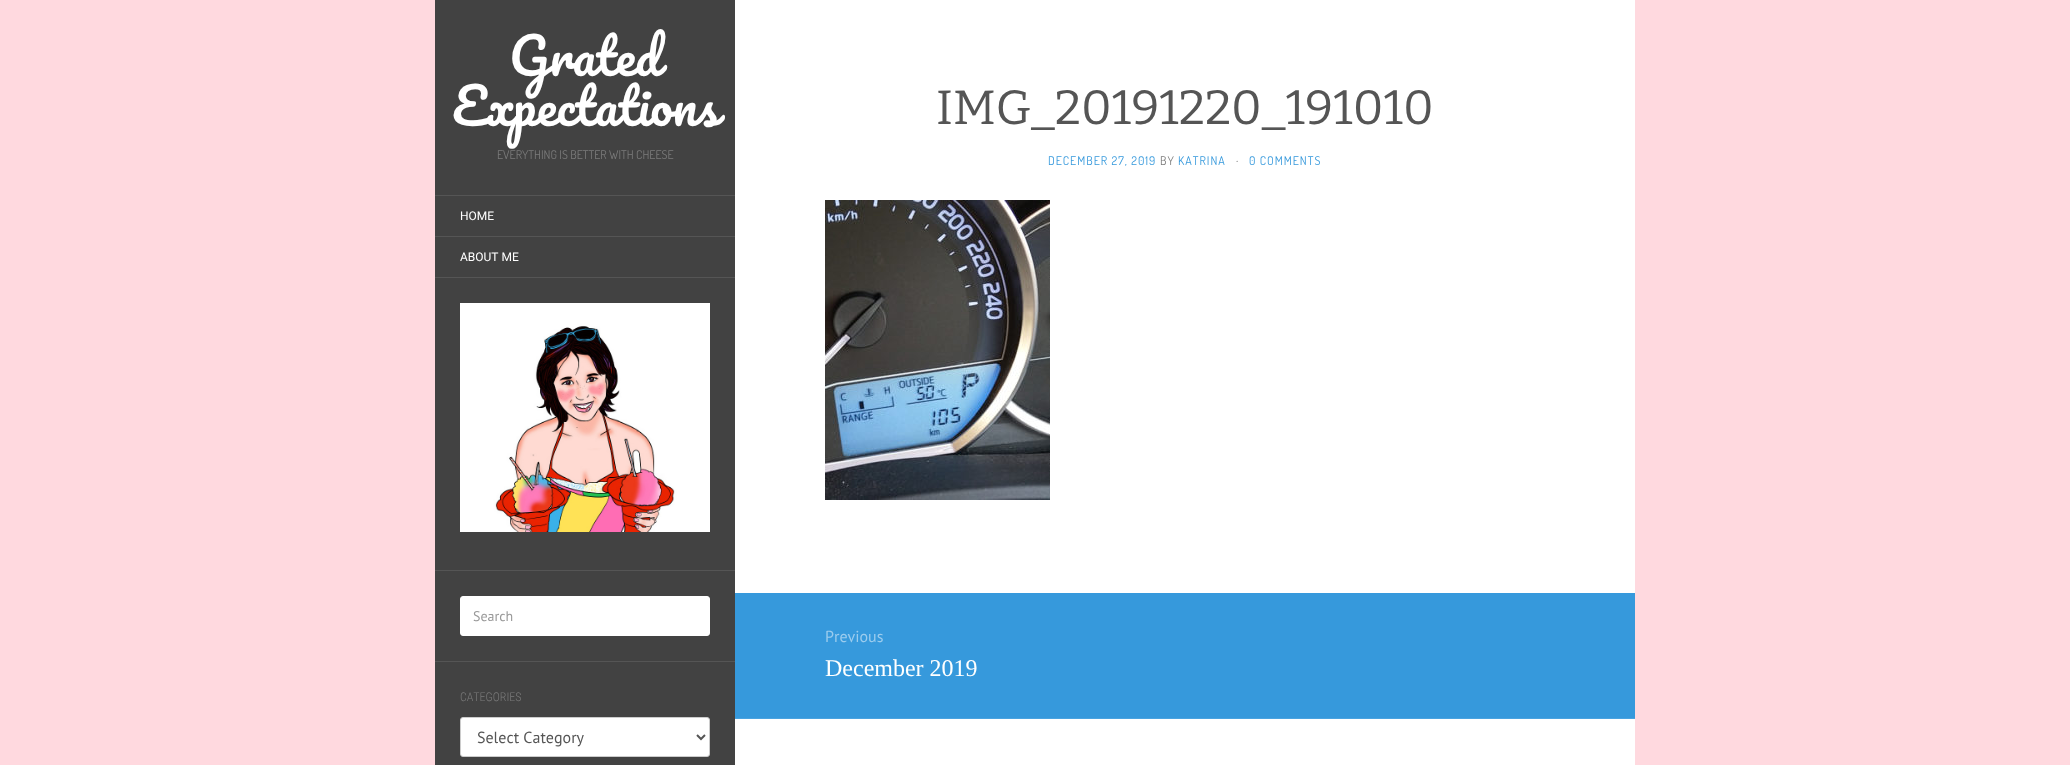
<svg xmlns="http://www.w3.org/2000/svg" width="2070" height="765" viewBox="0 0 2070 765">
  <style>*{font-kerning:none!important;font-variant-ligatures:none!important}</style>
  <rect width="100%" height="100%" fill="#ffd9df"/>
  <rect x="735" y="0" width="900" height="765" fill="#ffffff"/>
  <rect x="435" y="0" width="300" height="765" fill="#424242"/>
  <rect x="435" y="195" width="300" height="1" fill="#555555"/>
  <text x="509" y="76" font-family="Pacifico" font-size="50" fill="#ffffff">Grated</text>
  <text x="452" y="126" font-family="Pacifico" font-size="50" fill="#ffffff">Expectations</text>
  <text x="497" y="159" font-family="Dosis" font-size="12" fill="#7b7b7b">EVERYTHING IS BETTER WITH CHEESE</text>
  <rect x="435" y="236" width="300" height="1" fill="#555555"/>
  <text x="460" y="220" font-family="Roboto" font-size="12" fill="#ffffff">HOME</text>
  <rect x="435" y="277" width="300" height="1" fill="#555555"/>
  <text x="460" y="261" font-family="Roboto" font-size="12" fill="#ffffff">ABOUT ME</text>
  <rect x="435" y="570" width="300" height="1" fill="#555555"/>
  <image x="460" y="303" width="250" height="229" href="img1.png"/>
  <rect x="435" y="661" width="300" height="1" fill="#555555"/>
  <rect x="460.5" y="596.5" width="249" height="39" rx="2.5" fill="#ffffff" stroke="#ffffff"/>
  <text x="473" y="621" font-family="PT Sans" font-size="14" fill="#999999">Search</text>
  <text x="460" y="701" font-family="Roboto Condensed" font-size="12" font-weight="300" fill="#7b7b7b">CATEGORIES</text>
  <rect x="460.5" y="717.5" width="249" height="39" rx="2.5" fill="#ffffff" stroke="#cccccc"/>
  <path d="M697 735L701 739L705 735" fill="none" stroke="#555555" stroke-width="2"/>
  <text x="477" y="743" font-family="PT Sans" font-size="16" fill="#555555">Select Category</text>
  <text x="936" y="124" font-family="Bitter" font-size="48" font-weight="100" fill="#555555">IMG_20191220_191010</text>
  <text x="1048" y="165" font-family="Dosis" font-size="12" letter-spacing="1" fill="#3699dc">DECEMBER 27, 2019</text>
  <text x="1160" y="165" font-family="Dosis" font-size="12" letter-spacing="1" fill="#7b7b7b">BY</text>
  <text x="1178" y="165" font-family="Dosis" font-size="12" letter-spacing="1" fill="#3699dc">KATRINA</text>
  <text x="1236" y="165" font-family="Dosis" font-size="12" letter-spacing="1" fill="#7b7b7b">·</text>
  <text x="1249" y="165" font-family="Dosis" font-size="12" letter-spacing="1" fill="#3699dc">0 COMMENTS</text>
  <image x="825" y="200" width="225" height="300" href="img2.png"/>
  <rect x="735" y="593" width="900" height="125" fill="#3699dc"/>
  <rect x="735" y="718" width="900" height="1" fill="#4aa3e0"/>
  <text x="825" y="642" font-family="PT Sans" font-size="16" fill="#9bccee">Previous</text>
  <text x="825" y="676" font-family="Liberation Serif" font-size="24" fill="#ffffff">December 2019</text>
</svg>
